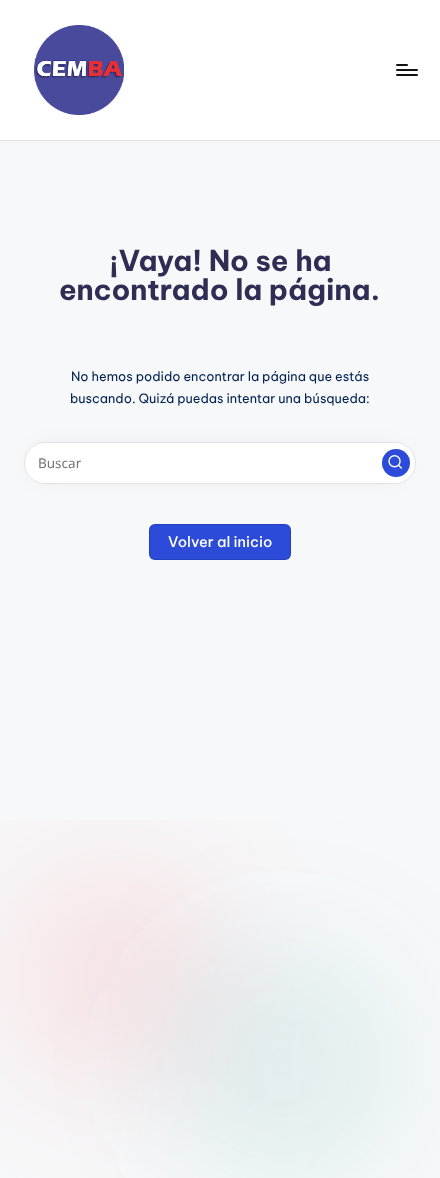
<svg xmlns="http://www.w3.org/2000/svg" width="440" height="1178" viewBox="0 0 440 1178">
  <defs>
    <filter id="blur1" x="-50%" y="-200%" width="200%" height="500%"><feGaussianBlur stdDeviation="13"/></filter>
    <clipPath id="clip1"><rect x="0" y="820" width="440" height="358"/></clipPath>
    <filter id="blur2" x="-50%" y="-200%" width="200%" height="500%"><feGaussianBlur stdDeviation="64"/></filter>
  </defs>
  <rect width="100%" height="100%" fill="#f7f8f9"/>
  <rect x="0" y="0" width="440" height="140" fill="#ffffff"/>
  <rect x="0" y="140" width="440" height="1" fill="#e3e3e3"/>
  <image x="34" y="25" width="90" height="90" href="img1.png"/>
  <rect x="396" y="69" width="22" height="2" rx="1" fill="#131315"/>
  <rect x="396" y="64" width="12" height="2" rx="1" fill="#131315"/>
  <rect x="396" y="74" width="22" height="2" rx="1" fill="#131315"/>
  <text x="109" y="271" font-family="Be Vietnam Pro" font-size="28.75" font-weight="bold" fill="#302d55">¡Vaya! No se ha</text>
  <text x="59" y="300" font-family="Be Vietnam Pro" font-size="28.75" font-weight="bold" fill="#302d55">encontrado la página.</text>
  <text x="71" y="381" font-family="Be Vietnam Pro" font-size="12.8" fill="#002050">No hemos podido encontrar la página que estás</text>
  <text x="70" y="403" font-family="Be Vietnam Pro" font-size="12.8" fill="#002050">buscando. Quizá puedas intentar una búsqueda:</text>
  <rect x="34" y="455" width="367" height="16" rx="8" fill="#000000" fill-opacity="0.15" filter="url(#blur1)"/>
  <rect x="24" y="442" width="392" height="42" rx="21" fill="#ffffff"/>
  <rect x="24.5" y="442.5" width="391" height="41" rx="20.5" fill="none" stroke="#b9b9b9" stroke-opacity="0.4"/>
  <text x="38" y="468" font-family="Noto Sans" font-size="13.5" fill="#757575">Buscar</text>
  <circle cx="396" cy="463" r="14" fill="#2b4bd8"/>
  <image x="388" y="455" width="14" height="14" href="img2.png"/>
  <rect x="149" y="524" width="142" height="36" rx="6" fill="#2b4bd8"/>
  <rect x="149.5" y="524.5" width="141" height="35" rx="5.5" fill="none" stroke="#000000" stroke-opacity="0.12"/>
  <text x="168" y="547" font-family="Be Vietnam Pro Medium" font-size="14.5" font-weight="500" fill="#ffffff">Volver al inicio</text>
  <g clip-path="url(#clip1)">
    <rect x="0" y="860" width="230" height="230" rx="115" fill="#f7e3e6" filter="url(#blur2)"/>
  </g>
  <rect x="166" y="948" width="231" height="230" rx="115" fill="#04868b" fill-opacity="0.1" filter="url(#blur2)"/>
</svg>
